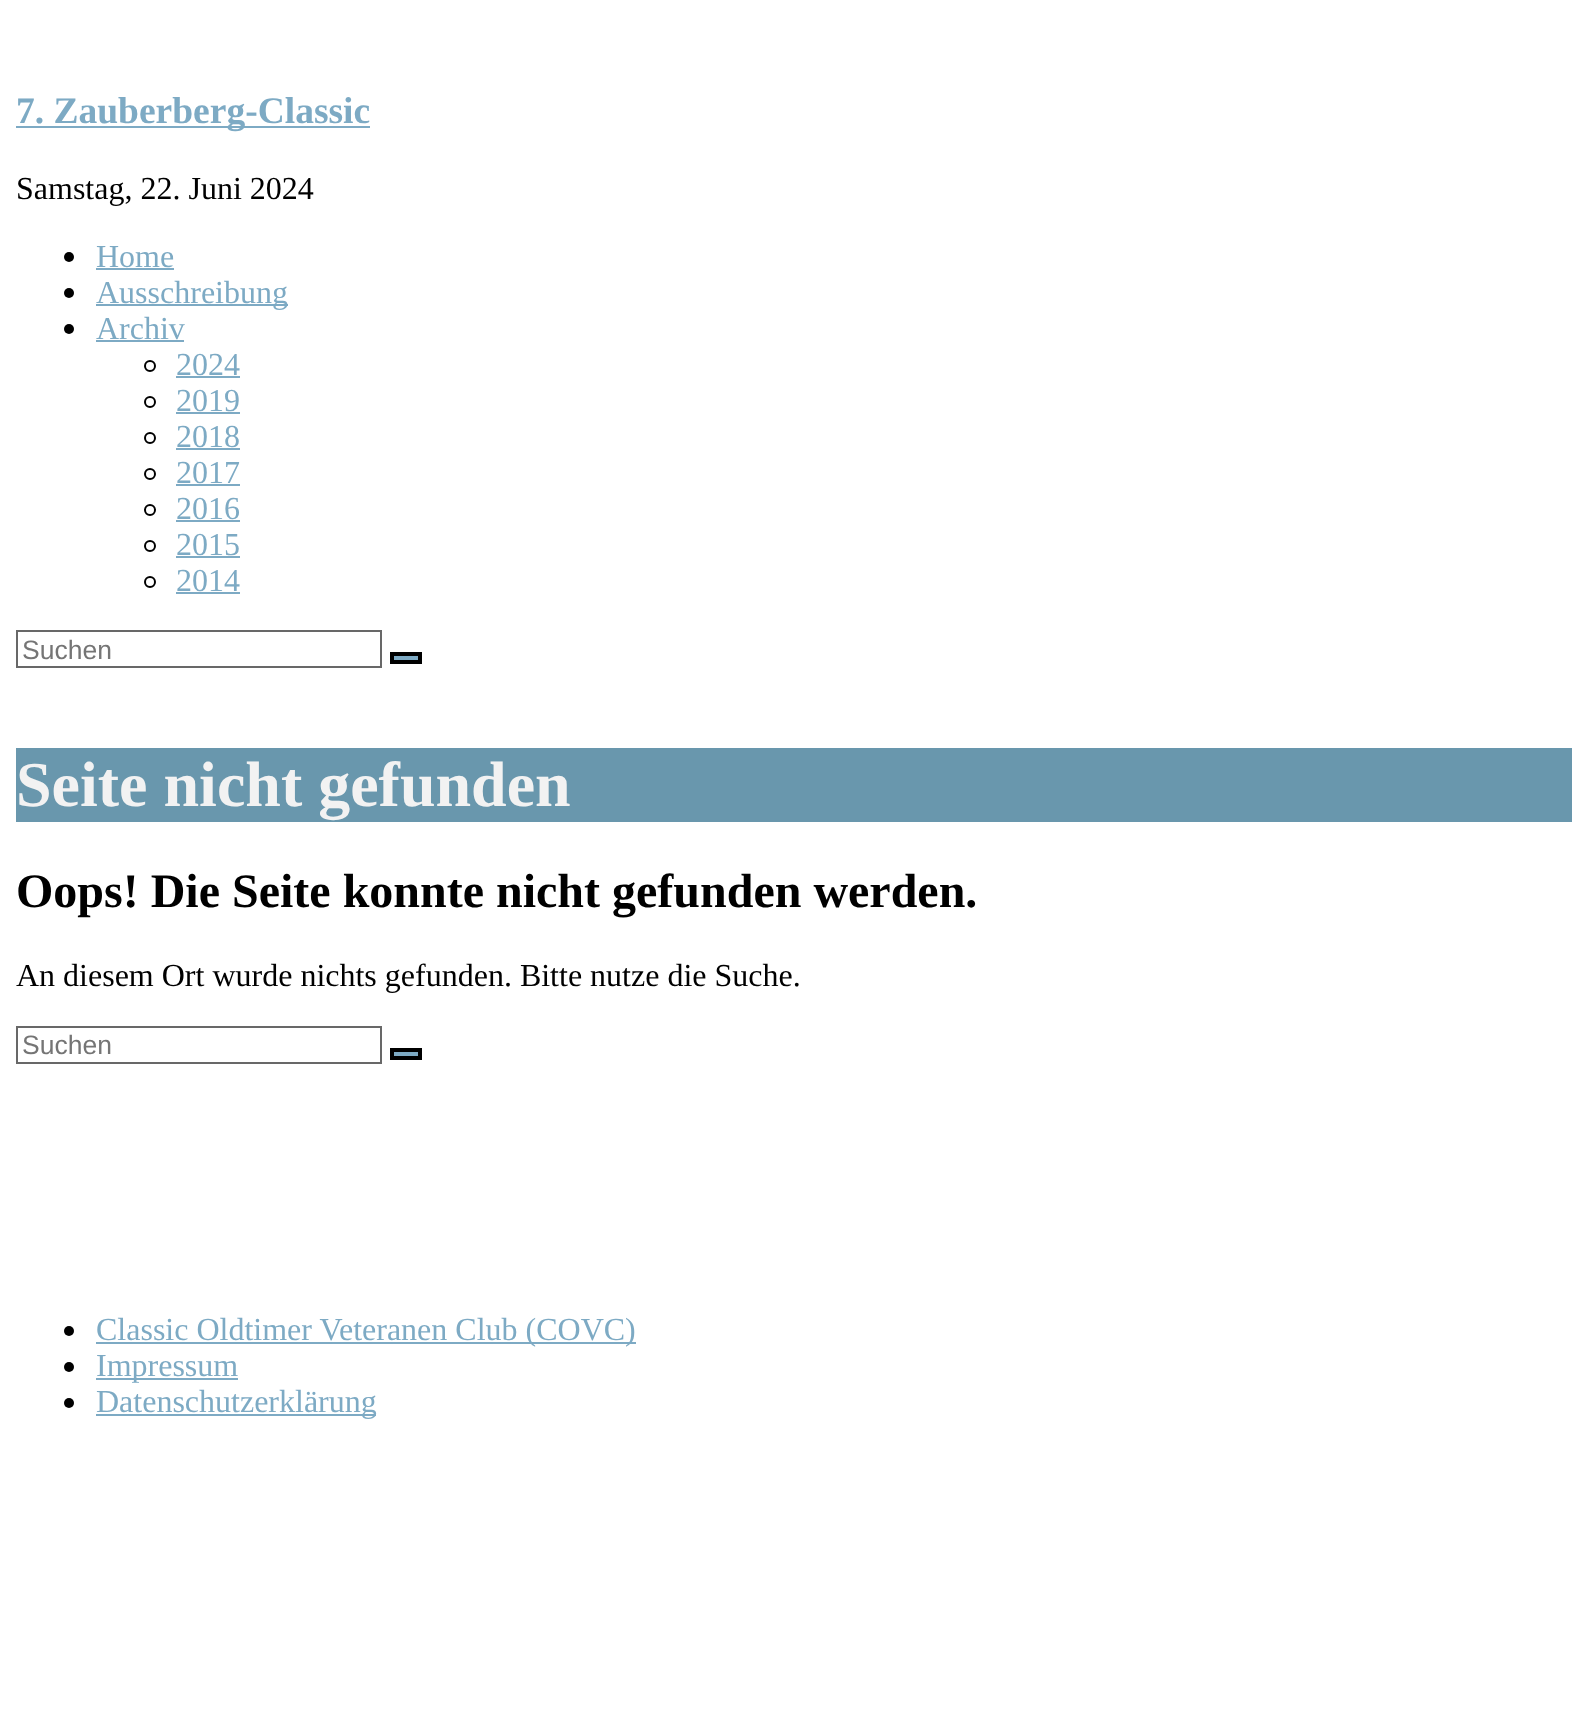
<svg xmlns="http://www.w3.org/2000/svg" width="1587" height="1724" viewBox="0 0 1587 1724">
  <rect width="100%" height="100%" fill="#ffffff"/>
  <rect x="16" y="126" width="354" height="2" fill="#7daac4"/>
  <text x="16" y="123" font-family="Liberation Serif" font-size="37.5" font-weight="bold" fill="#7daac4">7. Zauberberg-Classic</text>
  <text x="16" y="199" font-family="Liberation Serif" font-size="32" fill="#000000">Samstag, 22. Juni 2024</text>
  <circle cx="69" cy="257" r="5" fill="#000000"/>
  <text x="96" y="267" font-family="Liberation Serif" font-size="32" fill="#7daac4">Home</text>
  <rect x="96" y="268" width="78" height="2" fill="#7daac4"/>
  <circle cx="69" cy="293" r="5" fill="#000000"/>
  <rect x="96" y="304" width="192" height="2" fill="#7daac4"/>
  <text x="96" y="303" font-family="Liberation Serif" font-size="32" fill="#7daac4">Ausschreibung</text>
  <circle cx="69" cy="329" r="5" fill="#000000"/>
  <text x="96" y="339" font-family="Liberation Serif" font-size="32" fill="#7daac4">Archiv</text>
  <rect x="96" y="340" width="88" height="2" fill="#7daac4"/>
  <circle cx="150" cy="366" r="5" fill="none" stroke="#000000" stroke-width="2"/>
  <text x="176" y="375" font-family="Liberation Serif" font-size="32" fill="#7daac4">2024</text>
  <rect x="176" y="376" width="64" height="2" fill="#7daac4"/>
  <circle cx="150" cy="402" r="5" fill="none" stroke="#000000" stroke-width="2"/>
  <text x="176" y="411" font-family="Liberation Serif" font-size="32" fill="#7daac4">2019</text>
  <rect x="176" y="412" width="64" height="2" fill="#7daac4"/>
  <circle cx="150" cy="438" r="5" fill="none" stroke="#000000" stroke-width="2"/>
  <text x="176" y="447" font-family="Liberation Serif" font-size="32" fill="#7daac4">2018</text>
  <rect x="176" y="448" width="64" height="2" fill="#7daac4"/>
  <circle cx="150" cy="474" r="5" fill="none" stroke="#000000" stroke-width="2"/>
  <text x="176" y="483" font-family="Liberation Serif" font-size="32" fill="#7daac4">2017</text>
  <rect x="176" y="484" width="64" height="2" fill="#7daac4"/>
  <circle cx="150" cy="510" r="5" fill="none" stroke="#000000" stroke-width="2"/>
  <text x="176" y="519" font-family="Liberation Serif" font-size="32" fill="#7daac4">2016</text>
  <rect x="176" y="520" width="64" height="2" fill="#7daac4"/>
  <circle cx="150" cy="546" r="5" fill="none" stroke="#000000" stroke-width="2"/>
  <text x="176" y="555" font-family="Liberation Serif" font-size="32" fill="#7daac4">2015</text>
  <rect x="176" y="556" width="64" height="2" fill="#7daac4"/>
  <circle cx="150" cy="582" r="5" fill="none" stroke="#000000" stroke-width="2"/>
  <text x="176" y="591" font-family="Liberation Serif" font-size="32" fill="#7daac4">2014</text>
  <rect x="176" y="592" width="64" height="2" fill="#7daac4"/>
  <rect x="17" y="631" width="364" height="36" fill="none" stroke="#686868" stroke-width="2"/>
  <text x="22" y="659" font-family="Liberation Sans" font-size="26.5" fill="#757575">Suchen</text>
  <rect x="392" y="654" width="28" height="8" fill="#7daac4" stroke="#000000" stroke-width="4"/>
  <rect x="16" y="748" width="1556" height="74" fill="#6997ad"/>
  <text x="16" y="806" font-family="Liberation Serif" font-size="64" font-weight="bold" fill="#f2f2f2">Seite nicht gefunden</text>
  <text x="16" y="907" font-family="Liberation Serif" font-size="48" font-weight="bold" fill="#000000">Oops! Die Seite konnte nicht gefunden werden.</text>
  <text x="16" y="986" font-family="Liberation Serif" font-size="32" fill="#000000">An diesem Ort wurde nichts gefunden. Bitte nutze die Suche.</text>
  <rect x="17" y="1027" width="364" height="36" fill="none" stroke="#686868" stroke-width="2"/>
  <text x="22" y="1054" font-family="Liberation Sans" font-size="26.5" fill="#757575">Suchen</text>
  <rect x="392" y="1050" width="28" height="8" fill="#7daac4" stroke="#000000" stroke-width="4"/>
  <circle cx="69" cy="1331" r="5" fill="#000000"/>
  <rect x="96" y="1342" width="540" height="2" fill="#7daac4"/>
  <text x="96" y="1340" font-family="Liberation Serif" font-size="32" fill="#7daac4">Classic Oldtimer Veteranen Club (COVC)</text>
  <circle cx="69" cy="1367" r="5" fill="#000000"/>
  <rect x="96" y="1378" width="142" height="2" fill="#7daac4"/>
  <text x="96" y="1376" font-family="Liberation Serif" font-size="32" fill="#7daac4">Impressum</text>
  <circle cx="69" cy="1403" r="5" fill="#000000"/>
  <rect x="96" y="1414" width="280" height="2" fill="#7daac4"/>
  <text x="96" y="1412" font-family="Liberation Serif" font-size="32" fill="#7daac4">Datenschutzerklärung</text>
</svg>
